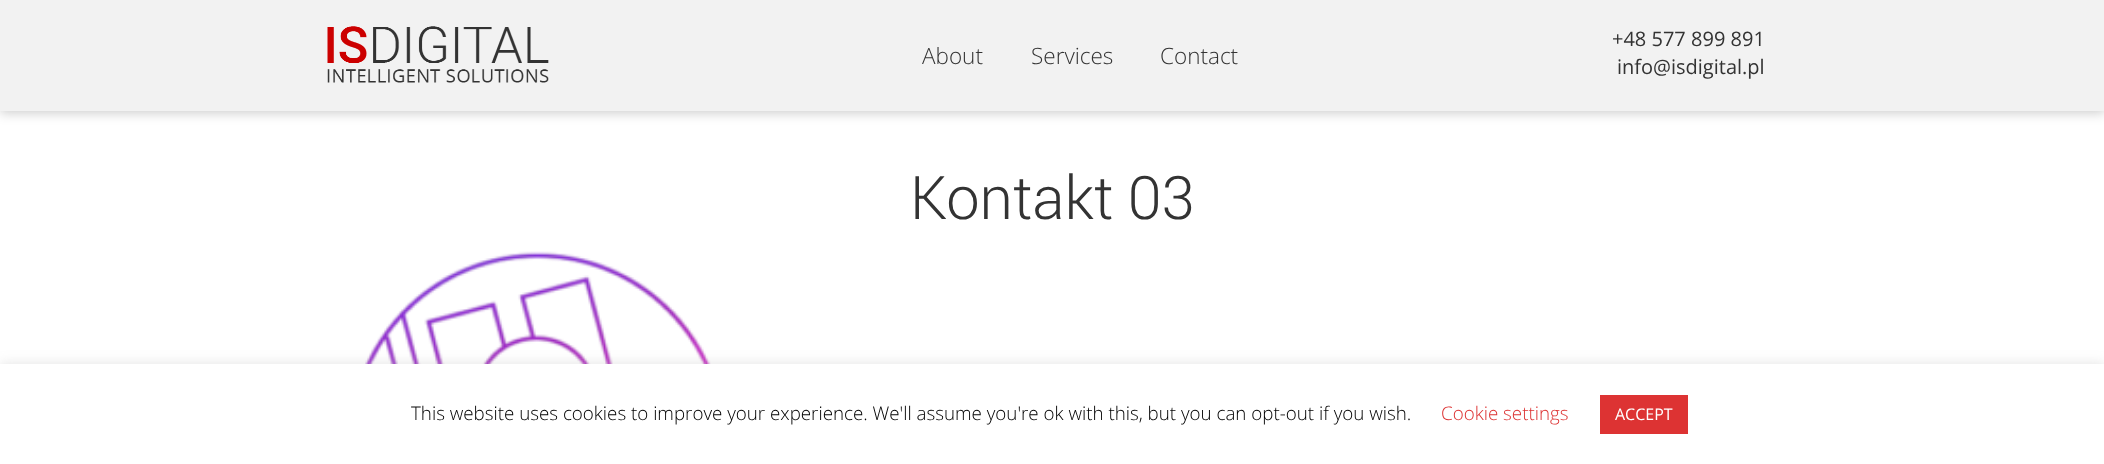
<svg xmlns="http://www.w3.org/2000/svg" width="2104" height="464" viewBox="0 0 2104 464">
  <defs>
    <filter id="blur1" x="-50%" y="-200%" width="200%" height="500%"><feGaussianBlur stdDeviation="6"/></filter>
  </defs>
  <rect width="100%" height="100%" fill="#ffffff"/>
  <rect x="0" y="1" width="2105" height="112" fill="#000000" fill-opacity="0.2" filter="url(#blur1)"/>
  <rect x="0" y="0" width="2104" height="111" fill="#f2f2f2"/>
  <image x="327" y="26" width="222" height="57" href="img1.png"/>
  <text x="922" y="64" font-family="Open Sans" font-size="22.5" font-weight="300" fill="#333333">About</text>
  <text x="1031" y="64" font-family="Open Sans" font-size="22.5" font-weight="300" fill="#333333">Services</text>
  <text x="1160" y="64" font-family="Open Sans" font-size="22.5" font-weight="300" fill="#333333">Contact</text>
  <text x="1612" y="46" font-family="Open Sans" font-size="20" fill="#333333">+48 577 899 891</text>
  <text x="1617" y="74" font-family="Open Sans" font-size="20" fill="#333333">info@isdigital.pl</text>
  <text x="910" y="219" font-family="Roboto" font-size="60" font-weight="300" fill="#333333">Kontakt 03</text>
  <image x="365" y="251" width="346" height="113" href="img2.png"/>
  <rect x="0" y="363" width="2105" height="101" fill="#acabab" fill-opacity="0.3" filter="url(#blur1)"/>
  <rect x="0" y="364" width="2104" height="100" fill="#ffffff"/>
  <text x="411" y="420" font-family="Open Sans" font-size="18.75" font-weight="300" fill="#000000">This website uses cookies to improve your experience. We'll assume you're ok with this, but you can opt-out if you wish.</text>
  <text x="1441" y="420" font-family="Open Sans" font-size="18.75" font-weight="300" fill="#dd3333">Cookie settings</text>
  <rect x="1600" y="395" width="88" height="39" fill="#dd3333"/>
  <text x="1615" y="420" font-family="Open Sans" font-size="16" fill="#ffffff">ACCEPT</text>
</svg>
